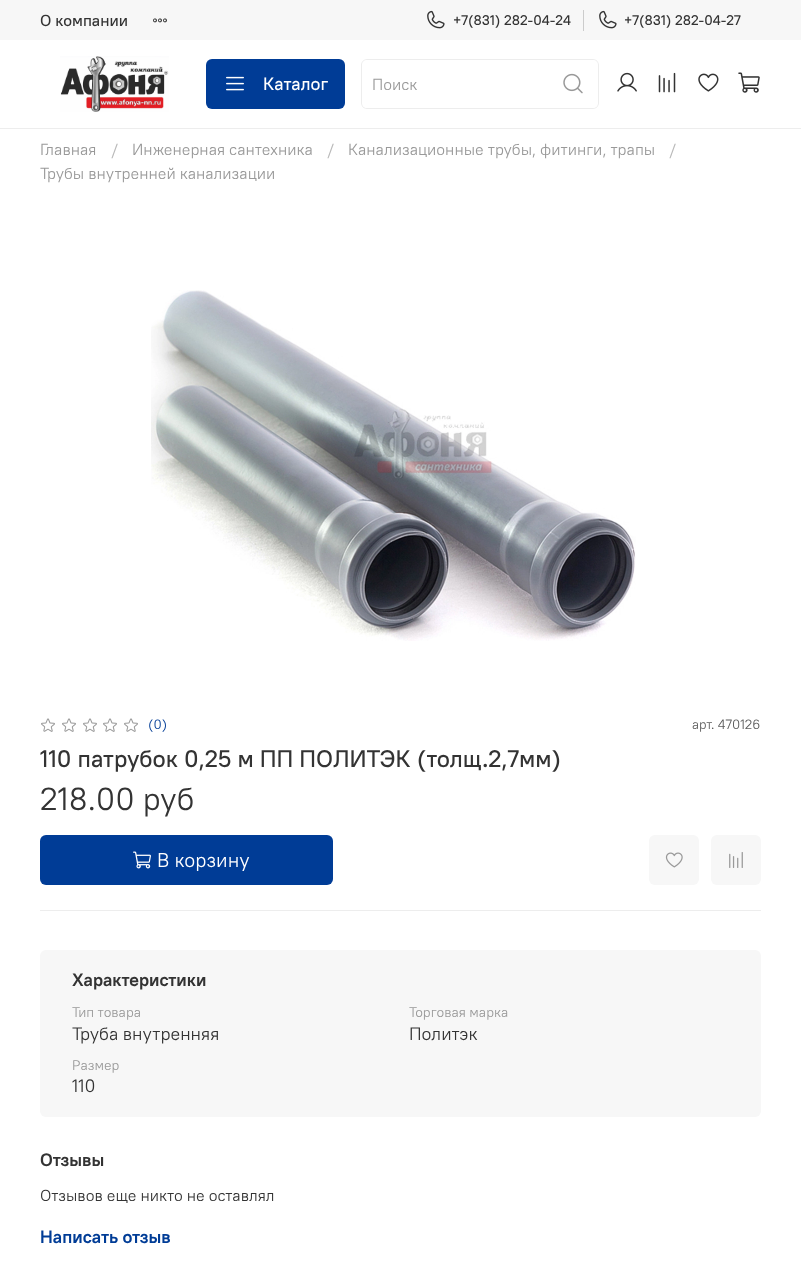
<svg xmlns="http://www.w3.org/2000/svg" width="801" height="1281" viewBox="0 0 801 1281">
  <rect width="100%" height="100%" fill="#ffffff"/>
  <rect x="0" y="0" width="801" height="40" fill="#f7f7f7"/>
  <text x="40" y="26" font-family="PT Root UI" font-size="16" font-weight="500" fill="#333333">О компании</text>
  <image x="153" y="18" width="14" height="5" href="img1.png"/>
  <rect x="583" y="10" width="1" height="21" fill="#cccccc"/>
  <image x="427" y="10" width="18" height="19" href="img2.png"/>
  <text x="453" y="25" font-family="PT Root UI" font-size="14" font-weight="500" fill="#333333">+7(831) 282-04-24</text>
  <image x="599" y="10" width="18" height="19" href="img2.png"/>
  <text x="624" y="25" font-family="PT Root UI" font-size="14" font-weight="500" fill="#333333">+7(831) 282-04-27</text>
  <rect x="0" y="128" width="801" height="1" fill="#ededed"/>
  <image x="60" y="56" width="109" height="56" href="img3.png"/>
  <rect x="206" y="59" width="139" height="50" rx="6" fill="#003c96"/>
  <image x="226" y="76" width="18" height="15" href="img4.png"/>
  <text x="263" y="90" font-family="PT Root UI" font-size="18" font-weight="500" fill="#ffffff">Каталог</text>
  <path d="M367 59H549V109H367C364 109 361 106 361 103V65C361 62 364 59 367 59ZM367 60H549V108H367C364 108 362 106 362 103V65C362 62 364 60 367 60Z" fill="#ededed" fill-rule="evenodd"/>
  <text x="372" y="90" font-family="PT Root UI" font-size="16" fill="#999999">Поиск</text>
  <path d="M549 59H593C596 59 599 62 599 65V103C599 106 596 109 593 109H549ZM549 60H593C596 60 598 62 598 65V103C598 106 596 108 593 108H549Z" fill="#ededed" fill-rule="evenodd"/>
  <image x="563" y="73" width="20" height="21" href="img5.png"/>
  <image x="617" y="72" width="20" height="20" href="img6.png"/>
  <image x="658" y="72" width="18" height="21" href="img7.png"/>
  <image x="698" y="73" width="21" height="19" href="img8.png"/>
  <image x="738" y="72" width="22" height="21" href="img9.png"/>
  <text x="40" y="155" font-family="PT Root UI" font-size="16" fill="#999999">Главная</text>
  <text x="111" y="155" font-family="PT Root UI" font-size="16" fill="#b8b8b8">/</text>
  <text x="132" y="155" font-family="PT Root UI" font-size="16" fill="#999999">Инженерная сантехника</text>
  <text x="327" y="155" font-family="PT Root UI" font-size="16" fill="#b8b8b8">/</text>
  <text x="348" y="155" font-family="PT Root UI" font-size="16" fill="#999999">Канализационные трубы, фитинги, трапы</text>
  <text x="669" y="155" font-family="PT Root UI" font-size="16" fill="#b8b8b8">/</text>
  <text x="40" y="179" font-family="PT Root UI" font-size="16" fill="#999999">Трубы внутренней канализации</text>
  <image x="151" y="290" width="485" height="351" href="img10.png"/>
  <image x="41" y="718" width="14" height="14" href="img11.png"/>
  <image x="62" y="718" width="14" height="14" href="img11.png"/>
  <image x="83" y="718" width="14" height="14" href="img11.png"/>
  <image x="103" y="718" width="14" height="14" href="img11.png"/>
  <image x="124" y="718" width="14" height="14" href="img11.png"/>
  <text x="148" y="729" font-family="PT Root UI" font-size="13.5" fill="#003c96">(0)</text>
  <text x="692" y="729" font-family="PT Root UI" font-size="13.5" fill="#5c5c5c">арт. 470126</text>
  <text x="40" y="767" font-family="PT Root UI" font-size="24" font-weight="500" fill="#333333">110 патрубок 0,25 м ПП ПОЛИТЭК (толщ.2,7мм)</text>
  <text x="40" y="810" font-family="PT Root UI" font-size="32" fill="#333333">218.00 руб</text>
  <rect x="40" y="835" width="293" height="50" rx="6" fill="#003c96"/>
  <image x="133" y="851" width="18" height="18" href="img12.png"/>
  <text x="157" y="867" font-family="PT Root UI" font-size="20" fill="#ffffff">В корзину</text>
  <rect x="649" y="835" width="50" height="50" rx="6" fill="#f7f7f7"/>
  <image x="665" y="852" width="18" height="16" href="img13.png"/>
  <rect x="711" y="835" width="50" height="50" rx="6" fill="#f7f7f7"/>
  <image x="729" y="852" width="14" height="16" href="img14.png"/>
  <rect x="40" y="910" width="721" height="1" fill="#ededed"/>
  <rect x="40" y="950" width="721" height="167" rx="6" fill="#f7f7f7"/>
  <text x="72" y="986" font-family="PT Root UI" font-size="18" font-weight="bold" fill="#333333">Характеристики</text>
  <text x="72" y="1017" font-family="PT Root UI" font-size="14" fill="#999999">Тип товара</text>
  <text x="72" y="1040" font-family="PT Root UI" font-size="18" fill="#333333">Труба внутренняя</text>
  <text x="409" y="1017" font-family="PT Root UI" font-size="14" fill="#999999">Торговая марка</text>
  <text x="409" y="1040" font-family="PT Root UI" font-size="18" fill="#333333">Политэк</text>
  <text x="72" y="1070" font-family="PT Root UI" font-size="14" fill="#999999">Размер</text>
  <text x="72" y="1092" font-family="PT Root UI" font-size="18" fill="#333333">110</text>
  <text x="40" y="1166" font-family="PT Root UI" font-size="18" font-weight="bold" fill="#333333">Отзывы</text>
  <text x="40" y="1201" font-family="PT Root UI" font-size="16" fill="#333333">Отзывов еще никто не оставлял</text>
  <text x="40" y="1243" font-family="PT Root UI" font-size="18" font-weight="bold" fill="#003c96">Написать отзыв</text>
</svg>
